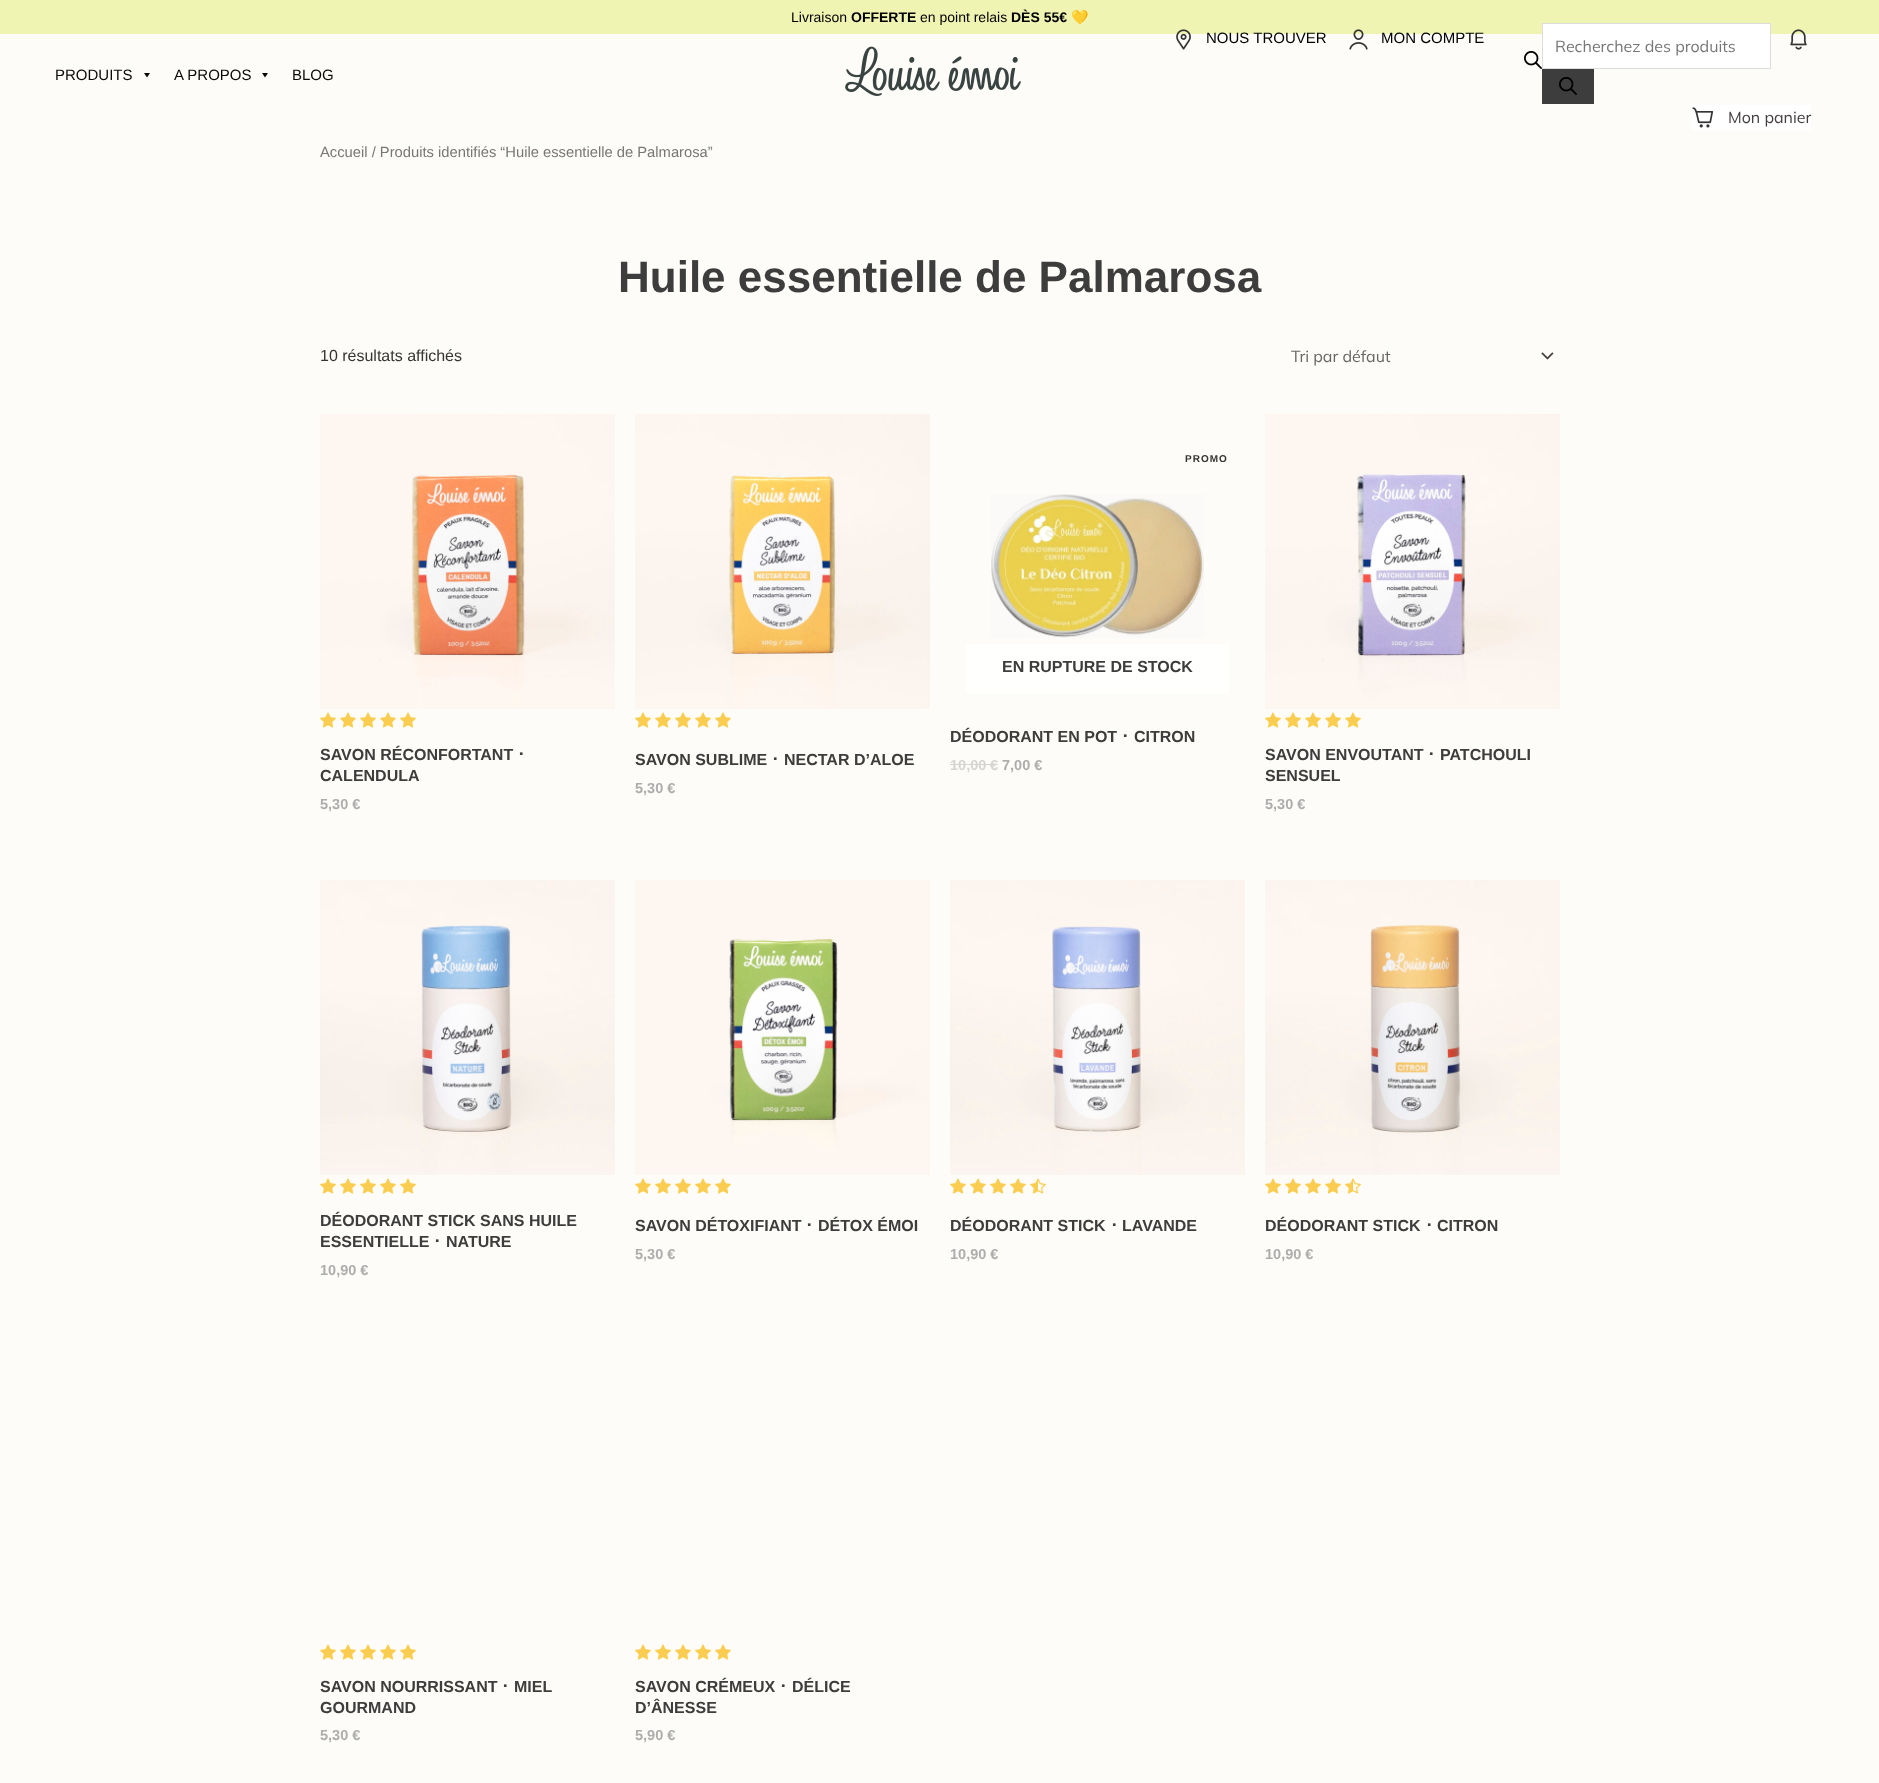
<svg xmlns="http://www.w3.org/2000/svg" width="1879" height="1783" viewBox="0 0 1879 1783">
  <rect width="100%" height="100%" fill="#fefcf8"/>
  <rect x="0" y="0" width="1879" height="34" fill="#eff4b2"/>
  <text x="791" y="22" font-family="Liberation Sans" font-size="14" fill="#000000">Livraison</text>
  <text x="851" y="22" font-family="Liberation Sans" font-size="14" font-weight="bold" fill="#000000">OFFERTE</text>
  <text x="920" y="22" font-family="Liberation Sans" font-size="14" fill="#000000">en point relais</text>
  <text x="1011" y="22" font-family="Liberation Sans" font-size="14" font-weight="bold" fill="#000000">DÈS 55€</text>
  <text x="1071" y="22" font-family="Noto Color Emoji" font-size="14" fill="#000000">💛</text>
  <text x="55" y="80" font-family="Liberation Sans" font-size="15" fill="#0a0a0a">PRODUITS</text>
  <path d="M150 73L147 77.5L144 73Z" fill="#0a0a0a"/>
  <text x="174" y="80" font-family="Liberation Sans" font-size="15" fill="#0a0a0a">A PROPOS</text>
  <path d="M268 73L265 77.5L262 73Z" fill="#0a0a0a"/>
  <text x="292" y="80" font-family="Liberation Sans" font-size="15" fill="#0a0a0a">BLOG</text>
  <image x="845" y="46" width="176" height="50" href="img1.png"/>
  <image x="1176" y="29" width="15" height="21" href="img2.png"/>
  <text x="1206" y="43" font-family="Liberation Sans" font-size="15" fill="#000000">NOUS TROUVER</text>
  <image x="1349" y="29" width="19" height="21" href="img3.png"/>
  <text x="1381" y="43" font-family="Liberation Sans" font-size="15" fill="#000000">MON COMPTE</text>
  <image x="1790" y="29" width="17" height="21" href="img4.png"/>
  <rect x="1542.5" y="23.5" width="228" height="45" fill="#ffffff" stroke="#dddddd"/>
  <text x="1555" y="52" font-family="Mulish" font-size="16" fill="#777777">Recherchez des produits</text>
  <rect x="1542" y="69" width="52" height="35" fill="#3c3d3c"/>
  <image x="1559" y="77" width="18" height="18" href="img5.png"/>
  <image x="1524" y="51" width="18" height="18" href="img6.png"/>
  <rect x="1690" y="105" width="121" height="25" rx="2" fill="#ffffff"/>
  <image x="1692" y="107" width="22" height="21" href="img7.png"/>
  <text x="1728" y="123" font-family="Mulish" font-size="16" fill="#453e3e">Mon panier</text>
  <text x="320" y="157" font-family="Liberation Sans" font-size="14.75" fill="#777777">Accueil / Produits identifiés “Huile essentielle de Palmarosa”</text>
  <text x="618" y="292" font-family="Liberation Sans" font-size="44" font-weight="bold" fill="#3c3d3c">Huile essentielle de Palmarosa</text>
  <text x="320" y="361" font-family="Liberation Sans" font-size="16" fill="#353535">10 résultats affichés</text>
  <image x="1541" y="352" width="13" height="8" href="img8.png"/>
  <text x="1291" y="362" font-family="Mulish" font-size="16" fill="#666666">Tri par défaut</text>
  <image x="320" y="414" width="295" height="295" href="img9.png"/>
  <image x="320" y="712" width="16" height="16" href="img10.png"/>
  <image x="340" y="712" width="16" height="16" href="img10.png"/>
  <image x="360" y="712" width="16" height="16" href="img10.png"/>
  <image x="380" y="712" width="16" height="16" href="img10.png"/>
  <image x="400" y="712" width="16" height="16" href="img10.png"/>
  <text x="320" y="760" font-family="Liberation Sans" font-size="16" font-weight="bold" fill="#3c3d3c">SAVON RÉCONFORTANT</text>
  <text x="517" y="760" font-family="IPAGothic" font-size="16" font-weight="bold" fill="#3c3d3c">･</text>
  <text x="320" y="781" font-family="Liberation Sans" font-size="16" font-weight="bold" fill="#3c3d3c">CALENDULA</text>
  <text x="320" y="809" font-family="Liberation Sans" font-size="14.5" font-weight="bold" fill="#adadad">5,30 €</text>
  <image x="635" y="414" width="295" height="295" href="img11.png"/>
  <image x="635" y="712" width="16" height="16" href="img10.png"/>
  <image x="655" y="712" width="16" height="16" href="img10.png"/>
  <image x="675" y="712" width="16" height="16" href="img10.png"/>
  <image x="695" y="712" width="16" height="16" href="img10.png"/>
  <image x="715" y="712" width="16" height="16" href="img10.png"/>
  <text x="635" y="765" font-family="Liberation Sans" font-size="16" font-weight="bold" fill="#3c3d3c">SAVON SUBLIME</text>
  <text x="771" y="765" font-family="IPAGothic" font-size="16" font-weight="bold" fill="#3c3d3c">･</text>
  <text x="784" y="765" font-family="Liberation Sans" font-size="16" font-weight="bold" fill="#3c3d3c">NECTAR D’ALOE</text>
  <text x="635" y="793" font-family="Liberation Sans" font-size="14.5" font-weight="bold" fill="#adadad">5,30 €</text>
  <text x="1185" y="462" font-family="Liberation Sans" font-size="10" font-weight="bold" letter-spacing="1" fill="#353535">PROMO</text>
  <image x="991" y="494" width="213" height="144" href="img12.png"/>
  <rect x="966" y="644" width="263" height="49" fill="#fffffe"/>
  <text x="1002" y="672" font-family="Liberation Sans" font-size="16" font-weight="bold" fill="#3c3d3c">EN RUPTURE DE STOCK</text>
  <text x="950" y="742" font-family="Liberation Sans" font-size="16" font-weight="bold" fill="#3c3d3c">DÉODORANT EN POT</text>
  <text x="1121" y="742" font-family="IPAGothic" font-size="16" font-weight="bold" fill="#3c3d3c">･</text>
  <text x="1134" y="742" font-family="Liberation Sans" font-size="16" font-weight="bold" fill="#3c3d3c">CITRON</text>
  <text x="950" y="770" font-family="Liberation Sans" font-size="14.5" font-weight="bold" fill="#d6d5d3">10,00</text>
  <rect x="950" y="764" width="40" height="1" fill="#d6d5d3"/>
  <text x="990" y="770" font-family="Liberation Sans" font-size="14.5" font-weight="bold" fill="#d6d5d3">€</text>
  <rect x="990" y="764" width="8" height="1" fill="#d6d5d3"/>
  <text x="1002" y="770" font-family="Liberation Sans" font-size="14.5" font-weight="bold" fill="#adadad">7,00 €</text>
  <image x="1265" y="414" width="295" height="295" href="img13.png"/>
  <image x="1265" y="712" width="16" height="16" href="img10.png"/>
  <image x="1285" y="712" width="16" height="16" href="img10.png"/>
  <image x="1305" y="712" width="16" height="16" href="img10.png"/>
  <image x="1325" y="712" width="16" height="16" href="img10.png"/>
  <image x="1345" y="712" width="16" height="16" href="img10.png"/>
  <text x="1265" y="760" font-family="Liberation Sans" font-size="16" font-weight="bold" fill="#3c3d3c">SAVON ENVOUTANT</text>
  <text x="1427" y="760" font-family="IPAGothic" font-size="16" font-weight="bold" fill="#3c3d3c">･</text>
  <text x="1440" y="760" font-family="Liberation Sans" font-size="16" font-weight="bold" fill="#3c3d3c">PATCHOULI</text>
  <text x="1265" y="781" font-family="Liberation Sans" font-size="16" font-weight="bold" fill="#3c3d3c">SENSUEL</text>
  <text x="1265" y="809" font-family="Liberation Sans" font-size="14.5" font-weight="bold" fill="#adadad">5,30 €</text>
  <image x="320" y="880" width="295" height="295" href="img14.png"/>
  <image x="320" y="1178" width="16" height="16" href="img10.png"/>
  <image x="340" y="1178" width="16" height="16" href="img10.png"/>
  <image x="360" y="1178" width="16" height="16" href="img10.png"/>
  <image x="380" y="1178" width="16" height="16" href="img10.png"/>
  <image x="400" y="1178" width="16" height="16" href="img10.png"/>
  <text x="320" y="1226" font-family="Liberation Sans" font-size="16" font-weight="bold" fill="#3c3d3c">DÉODORANT STICK SANS HUILE</text>
  <text x="320" y="1247" font-family="Liberation Sans" font-size="16" font-weight="bold" fill="#3c3d3c">ESSENTIELLE</text>
  <text x="433" y="1247" font-family="IPAGothic" font-size="16" font-weight="bold" fill="#3c3d3c">･</text>
  <text x="446" y="1247" font-family="Liberation Sans" font-size="16" font-weight="bold" fill="#3c3d3c">NATURE</text>
  <text x="320" y="1275" font-family="Liberation Sans" font-size="14.5" font-weight="bold" fill="#adadad">10,90 €</text>
  <image x="635" y="880" width="295" height="295" href="img15.png"/>
  <image x="635" y="1178" width="16" height="16" href="img10.png"/>
  <image x="655" y="1178" width="16" height="16" href="img10.png"/>
  <image x="675" y="1178" width="16" height="16" href="img10.png"/>
  <image x="695" y="1178" width="16" height="16" href="img10.png"/>
  <image x="715" y="1178" width="16" height="16" href="img10.png"/>
  <text x="635" y="1231" font-family="Liberation Sans" font-size="16" font-weight="bold" fill="#3c3d3c">SAVON DÉTOXIFIANT</text>
  <text x="805" y="1231" font-family="IPAGothic" font-size="16" font-weight="bold" fill="#3c3d3c">･</text>
  <text x="818" y="1231" font-family="Liberation Sans" font-size="16" font-weight="bold" fill="#3c3d3c">DÉTOX ÉMOI</text>
  <text x="635" y="1259" font-family="Liberation Sans" font-size="14.5" font-weight="bold" fill="#adadad">5,30 €</text>
  <image x="950" y="880" width="295" height="295" href="img16.png"/>
  <image x="950" y="1178" width="16" height="16" href="img10.png"/>
  <image x="970" y="1178" width="16" height="16" href="img10.png"/>
  <image x="990" y="1178" width="16" height="16" href="img10.png"/>
  <image x="1010" y="1178" width="16" height="16" href="img10.png"/>
  <image x="1030" y="1178" width="16" height="16" href="img17.png"/>
  <text x="950" y="1231" font-family="Liberation Sans" font-size="16" font-weight="bold" fill="#3c3d3c">DÉODORANT STICK</text>
  <text x="1110" y="1231" font-family="IPAGothic" font-size="16" font-weight="bold" fill="#3c3d3c">･</text>
  <text x="1122" y="1231" font-family="Liberation Sans" font-size="16" font-weight="bold" fill="#3c3d3c">LAVANDE</text>
  <text x="950" y="1259" font-family="Liberation Sans" font-size="14.5" font-weight="bold" fill="#adadad">10,90 €</text>
  <image x="1265" y="880" width="295" height="295" href="img18.png"/>
  <image x="1265" y="1178" width="16" height="16" href="img10.png"/>
  <image x="1285" y="1178" width="16" height="16" href="img10.png"/>
  <image x="1305" y="1178" width="16" height="16" href="img10.png"/>
  <image x="1325" y="1178" width="16" height="16" href="img10.png"/>
  <image x="1345" y="1178" width="16" height="16" href="img17.png"/>
  <text x="1265" y="1231" font-family="Liberation Sans" font-size="16" font-weight="bold" fill="#3c3d3c">DÉODORANT STICK</text>
  <text x="1425" y="1231" font-family="IPAGothic" font-size="16" font-weight="bold" fill="#3c3d3c">･</text>
  <text x="1437" y="1231" font-family="Liberation Sans" font-size="16" font-weight="bold" fill="#3c3d3c">CITRON</text>
  <text x="1265" y="1259" font-family="Liberation Sans" font-size="14.5" font-weight="bold" fill="#adadad">10,90 €</text>
  <image x="320" y="1644" width="16" height="16" href="img10.png"/>
  <image x="340" y="1644" width="16" height="16" href="img10.png"/>
  <image x="360" y="1644" width="16" height="16" href="img10.png"/>
  <image x="380" y="1644" width="16" height="16" href="img10.png"/>
  <image x="400" y="1644" width="16" height="16" href="img10.png"/>
  <text x="320" y="1692" font-family="Liberation Sans" font-size="16" font-weight="bold" fill="#3c3d3c">SAVON NOURRISSANT</text>
  <text x="501" y="1692" font-family="IPAGothic" font-size="16" font-weight="bold" fill="#3c3d3c">･</text>
  <text x="514" y="1692" font-family="Liberation Sans" font-size="16" font-weight="bold" fill="#3c3d3c">MIEL</text>
  <text x="320" y="1713" font-family="Liberation Sans" font-size="16" font-weight="bold" fill="#3c3d3c">GOURMAND</text>
  <text x="320" y="1740" font-family="Liberation Sans" font-size="14.5" font-weight="bold" fill="#adadad">5,30 €</text>
  <image x="635" y="1644" width="16" height="16" href="img10.png"/>
  <image x="655" y="1644" width="16" height="16" href="img10.png"/>
  <image x="675" y="1644" width="16" height="16" href="img10.png"/>
  <image x="695" y="1644" width="16" height="16" href="img10.png"/>
  <image x="715" y="1644" width="16" height="16" href="img10.png"/>
  <text x="635" y="1692" font-family="Liberation Sans" font-size="16" font-weight="bold" fill="#3c3d3c">SAVON CRÉMEUX</text>
  <text x="779" y="1692" font-family="IPAGothic" font-size="16" font-weight="bold" fill="#3c3d3c">･</text>
  <text x="792" y="1692" font-family="Liberation Sans" font-size="16" font-weight="bold" fill="#3c3d3c">DÉLICE</text>
  <text x="635" y="1713" font-family="Liberation Sans" font-size="16" font-weight="bold" fill="#3c3d3c">D’ÂNESSE</text>
  <text x="635" y="1740" font-family="Liberation Sans" font-size="14.5" font-weight="bold" fill="#adadad">5,90 €</text>
</svg>
